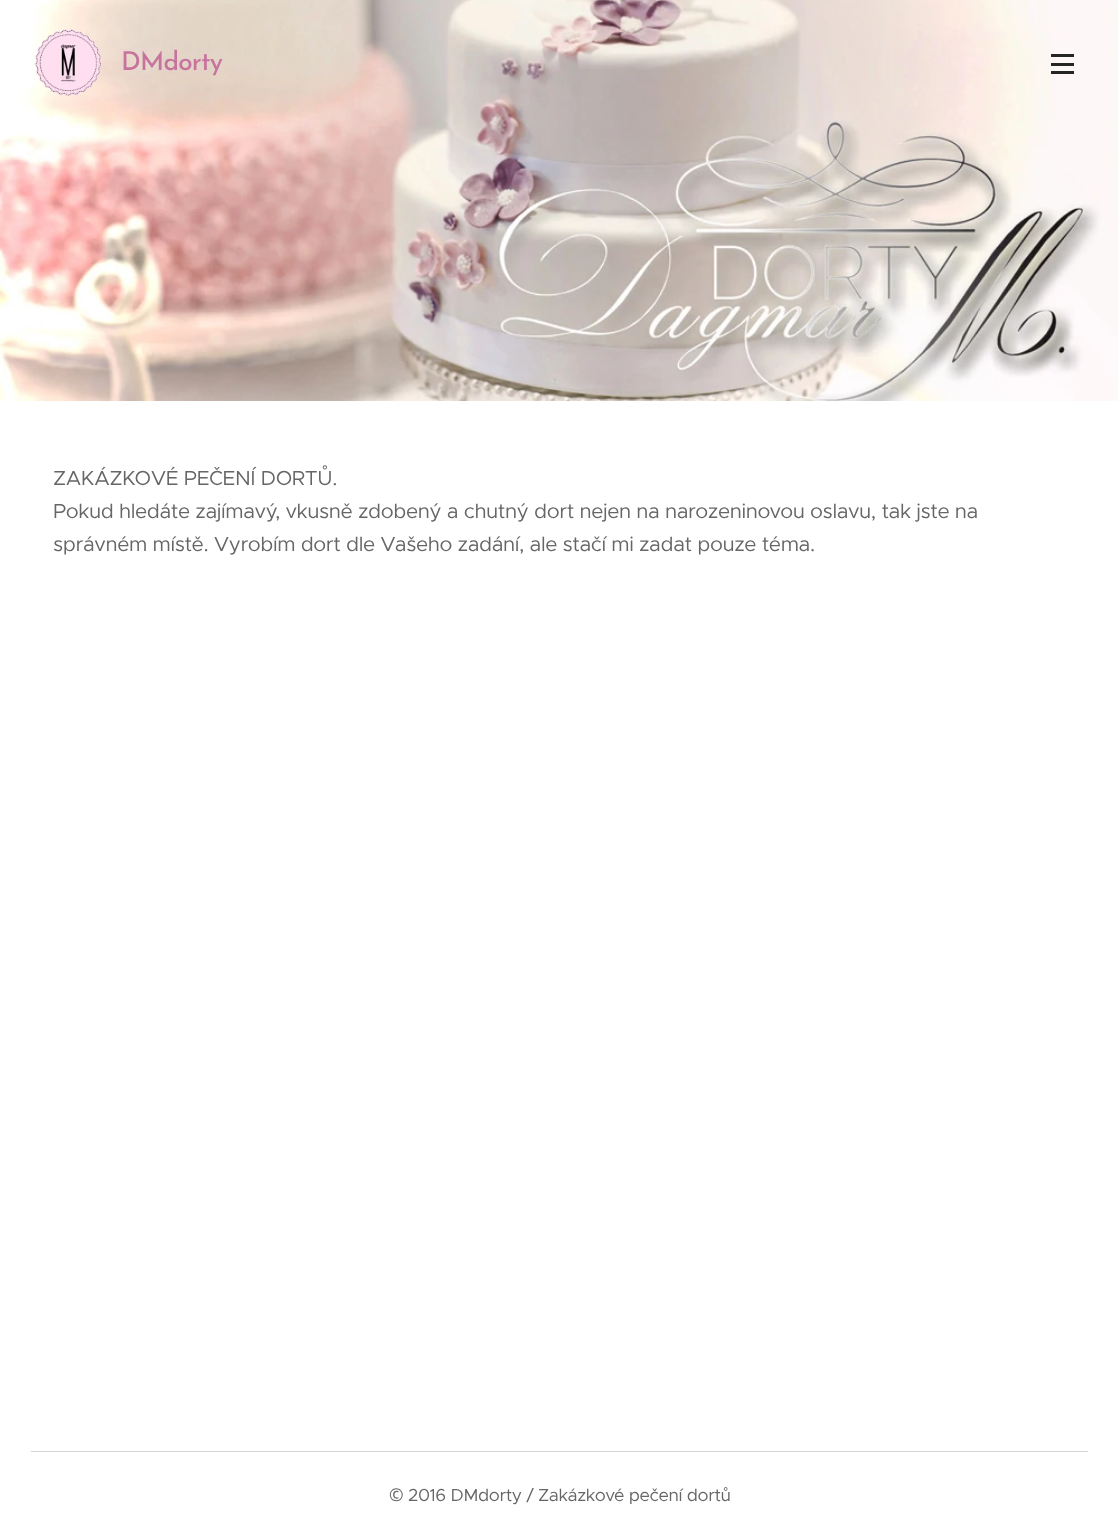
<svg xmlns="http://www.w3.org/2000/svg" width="1118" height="1539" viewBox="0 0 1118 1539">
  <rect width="100%" height="100%" fill="#ffffff"/>
  <image x="0" y="0" width="1118" height="401" href="img2.png"/>
  <image x="34" y="29" width="68" height="67" href="img1.png"/>
  <text x="121" y="70" font-family="Josefin Sans" font-size="26" font-weight="500" letter-spacing="-0.75" fill="#c6739e">DMdorty</text>
  <rect x="1051" y="63" width="23" height="3" fill="#000000" fill-opacity="0.85"/>
  <rect x="1051" y="54" width="23" height="3" fill="#262525"/>
  <rect x="1051" y="71" width="23" height="3" fill="#000000" fill-opacity="0.85"/>
  <text x="53" y="485" font-family="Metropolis" font-size="20.5" letter-spacing="-0.4" fill="#666666">ZAKÁZKOVÉ PEČENÍ DORTŮ.</text>
  <text x="53" y="518" font-family="Metropolis" font-size="20.5" letter-spacing="-0.4" fill="#666666">Pokud hledáte zajímavý, vkusně zdobený a chutný dort nejen na</text>
  <text x="665" y="518" font-family="Metropolis" font-size="20.5" letter-spacing="-0.4" fill="#666666">narozeninovou oslavu, tak jste na</text>
  <text x="53" y="551" font-family="Metropolis" font-size="20.5" letter-spacing="-0.4" fill="#666666">správném místě. Vyrobím dort dle Vašeho zadání, ale stačí mi zadat pouze téma.</text>
  <rect x="31" y="1451" width="1057" height="1" fill="#d4d4d4"/>
  <text x="389" y="1501" font-family="Noto Sans" font-size="17.5" letter-spacing="-0.4" fill="#666666">©</text>
  <text x="408" y="1501" font-family="Metropolis" font-size="17.5" letter-spacing="-0.4" fill="#666666">2016 DMdorty / Zakázkové pečení dortů</text>
</svg>
